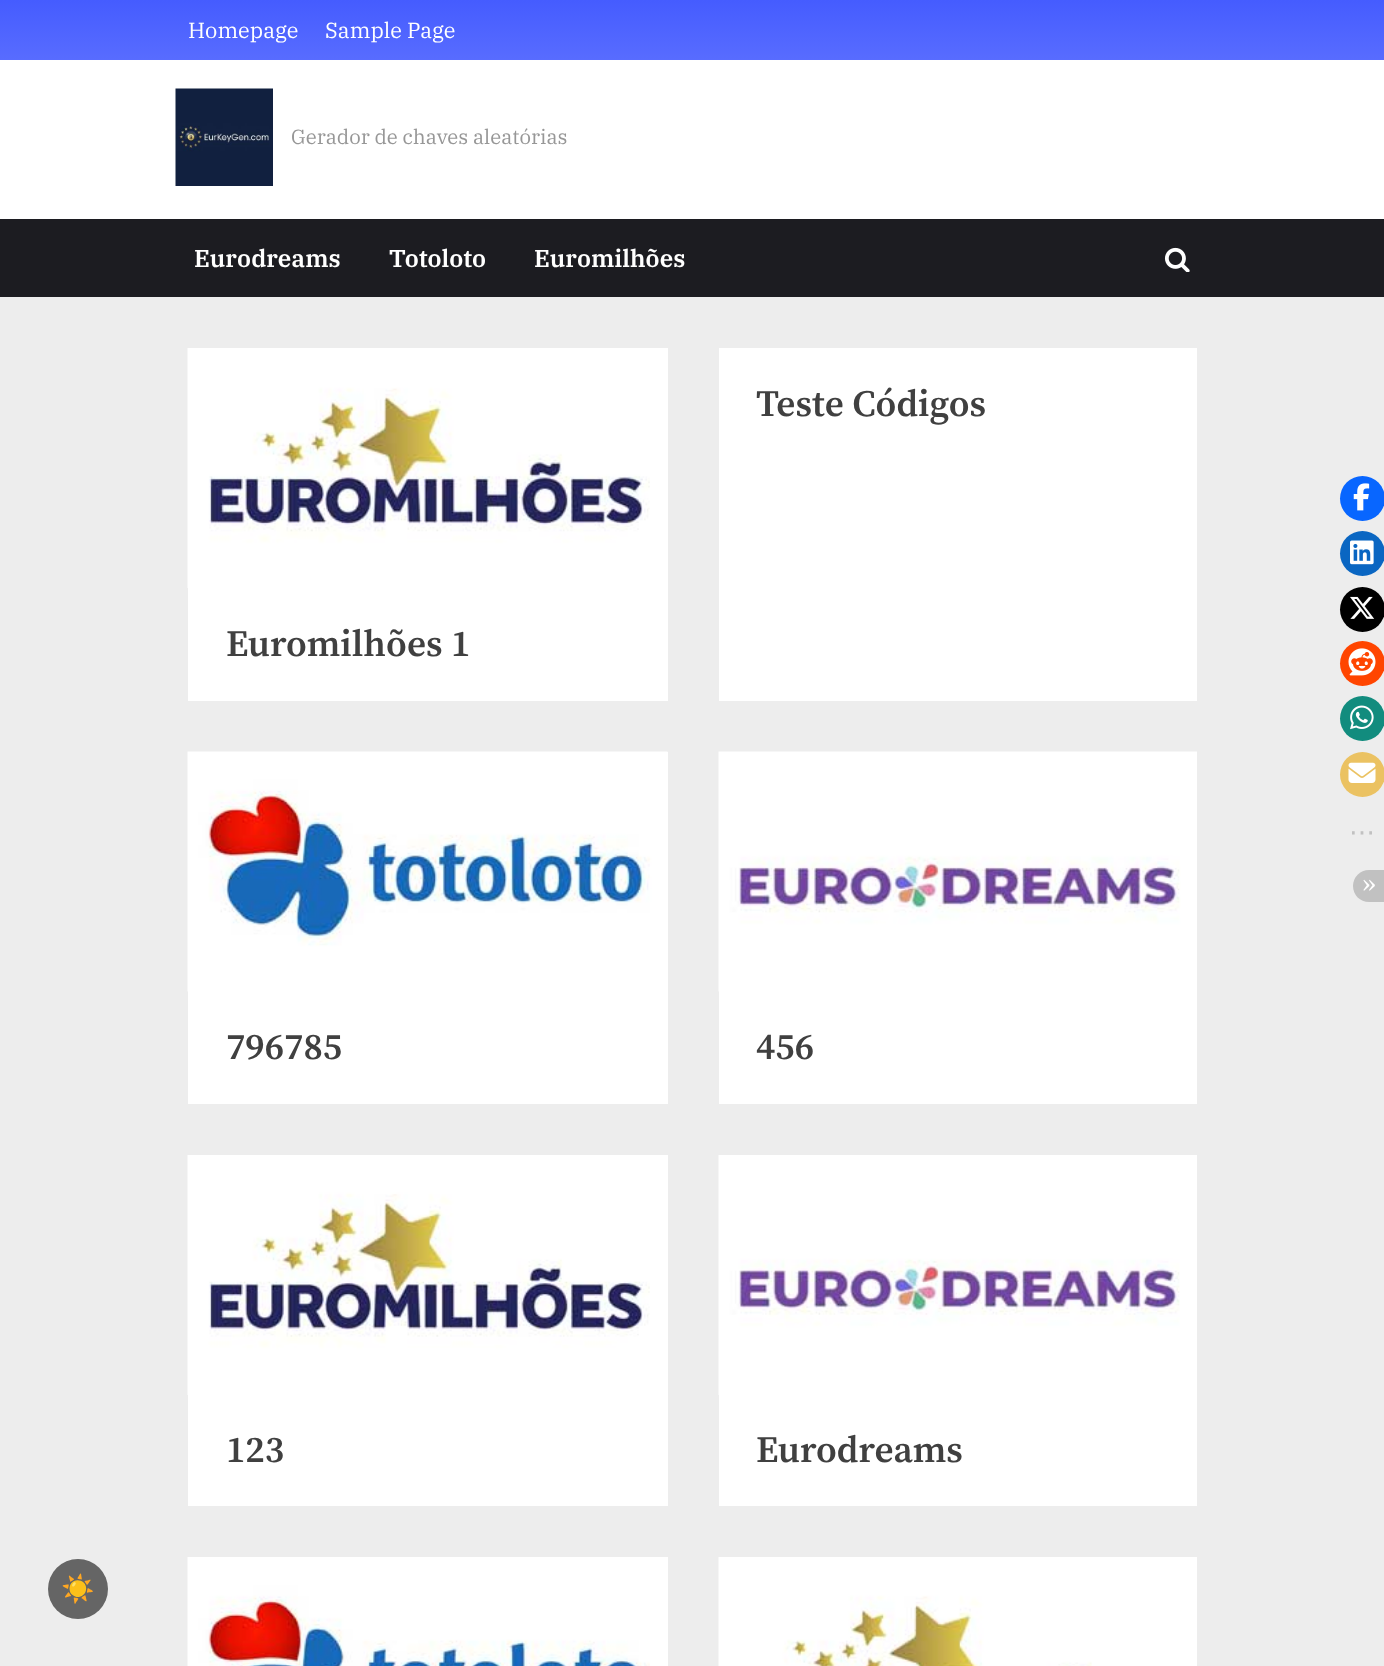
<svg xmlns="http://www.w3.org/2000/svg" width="1384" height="1666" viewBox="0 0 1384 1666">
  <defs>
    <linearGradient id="g1" gradientUnits="userSpaceOnUse" x1="692" y1="60" x2="692" y2="0"><stop offset="0" stop-color="#586cff"/><stop offset="1" stop-color="#455cff"/></linearGradient>
  </defs>
  <rect width="100%" height="100%" fill="#ededed"/>
  <rect x="0" y="0" width="1384" height="60" fill="url(#g1)"/>
  <text x="188" y="38" font-family="IBM Plex Serif" font-size="21.75" fill="#ffffff">Homepage</text>
  <text x="325" y="38" font-family="IBM Plex Serif" font-size="21.75" fill="#ffffff">Sample Page</text>
  <rect x="0" y="60" width="1384" height="159" fill="#ffffff"/>
  <image x="175" y="88" width="98" height="98" href="img1.png"/>
  <text x="291" y="144" font-family="IBM Plex Serif" font-size="20.4" fill="#979797">Gerador de chaves aleatórias</text>
  <rect x="0" y="219" width="1384" height="78" fill="#1c1c21"/>
  <text x="194" y="267" font-family="IBM Plex Serif" font-size="24.25" font-weight="600" fill="#ffffff">Eurodreams</text>
  <text x="389" y="267" font-family="IBM Plex Serif" font-size="24.25" font-weight="600" fill="#ffffff">Totoloto</text>
  <text x="534" y="267" font-family="IBM Plex Serif" font-size="24.25" font-weight="600" fill="#ffffff">Euromilhões</text>
  <image x="1164" y="247" width="26" height="25" href="img2.png"/>
  <rect x="719" y="348" width="478" height="353" fill="#ffffff"/>
  <text x="756" y="416" font-family="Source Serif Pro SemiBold" font-size="37.25" font-weight="600" fill="#404040">Teste Códigos</text>
  <rect x="188" y="348" width="480" height="353" fill="#ffffff"/>
  <image x="187" y="348" width="463" height="240" href="img3.png"/>
  <text x="226" y="656" font-family="Source Serif Pro SemiBold" font-size="37.25" font-weight="600" fill="#404040">Euromilhões 1</text>
  <rect x="188" y="752" width="480" height="352" fill="#ffffff"/>
  <image x="187" y="751" width="481" height="241" href="img4.png"/>
  <text x="226" y="1059" font-family="Source Serif Pro SemiBold" font-size="37.25" font-weight="600" fill="#404040">796785</text>
  <rect x="719" y="991" width="478" height="113" fill="#ffffff"/>
  <image x="718" y="751" width="479" height="241" href="img5.png"/>
  <text x="756" y="1059" font-family="Source Serif Pro SemiBold" font-size="37.25" font-weight="600" fill="#404040">456</text>
  <rect x="188" y="1155" width="480" height="351" fill="#ffffff"/>
  <image x="187" y="1155" width="463" height="240" href="img6.png"/>
  <text x="226" y="1462" font-family="Source Serif Pro SemiBold" font-size="37.25" font-weight="600" fill="#404040">123</text>
  <rect x="719" y="1155" width="478" height="351" fill="#ffffff"/>
  <image x="718" y="1155" width="462" height="240" href="img7.png"/>
  <text x="756" y="1462" font-family="Source Serif Pro SemiBold" font-size="37.25" font-weight="600" fill="#404040">Eurodreams</text>
  <rect x="650" y="1557" width="18" height="109" fill="#ffffff"/>
  <image x="187" y="1557" width="463" height="109" href="img8.png"/>
  <rect x="1092" y="1557" width="105" height="109" fill="#ffffff"/>
  <image x="718" y="1557" width="374" height="109" href="img9.png"/>
  <circle cx="1362.5" cy="498.5" r="22.5" fill="#0866ff"/>
  <image x="1353" y="483" width="17" height="28" href="img10.png"/>
  <circle cx="1362.5" cy="553.5" r="22.5" fill="#0a66c2"/>
  <image x="1350" y="540" width="24" height="25" href="img11.png"/>
  <circle cx="1362.5" cy="609.5" r="22.5" fill="#000000"/>
  <image x="1350" y="596" width="25" height="23" href="img12.png"/>
  <circle cx="1362.5" cy="663.5" r="22.5" fill="#ff4500"/>
  <image x="1348" y="648" width="28" height="28" href="img13.png"/>
  <circle cx="1362.5" cy="718.5" r="22.5" fill="#128c7e"/>
  <image x="1350" y="705" width="24" height="25" href="img14.png"/>
  <circle cx="1362.5" cy="774.5" r="22.5" fill="#ebc262"/>
  <image x="1348" y="762" width="28" height="21" href="img15.png"/>
  <text x="1349" y="841" font-family="DejaVu Sans" font-size="26" fill="#c1c1c1">⋯</text>
  <path d="M1369 870H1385V902H1369C1360 902 1353 895 1353 886C1353 877 1360 870 1369 870Z" fill="#c1c1c1"/>
  <text x="1362" y="893" font-family="IBM Plex Serif" font-size="27" fill="#ffffff">»</text>
  <circle cx="78" cy="1589" r="30" fill="#656565"/>
  <text x="61" y="1598" font-family="Noto Color Emoji" font-size="27" font-weight="bold" fill="#eeeeee">☀️</text>
</svg>
